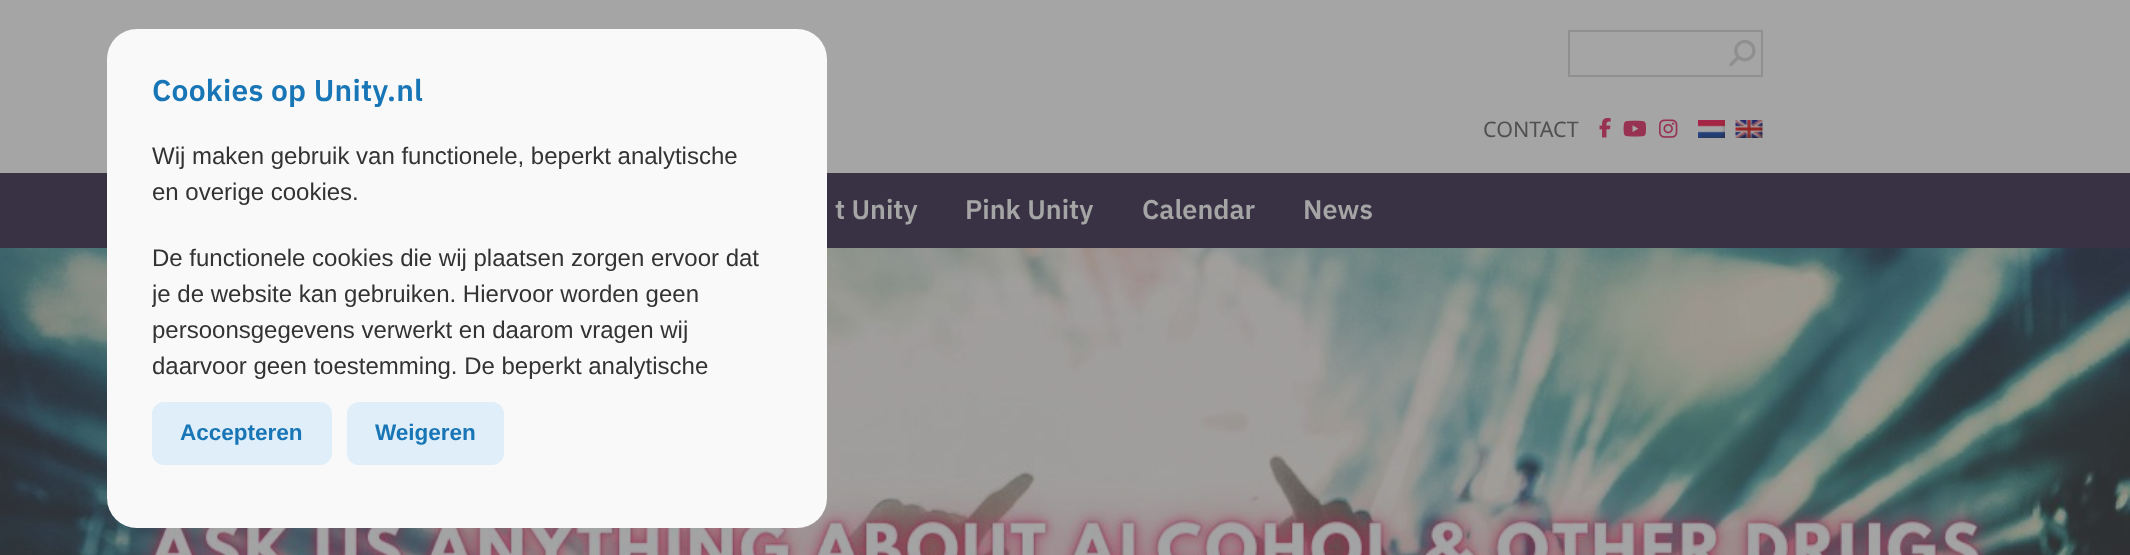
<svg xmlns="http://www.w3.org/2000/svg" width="2130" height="555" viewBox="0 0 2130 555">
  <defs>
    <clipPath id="clip1"><rect x="152" y="74" width="630" height="319"/></clipPath>
  </defs>
  <rect width="100%" height="100%" fill="#a5a5a5"/>
  <rect x="0" y="173" width="2130" height="75" fill="#383244"/>
  <image x="0" y="248" width="2130" height="307" href="img7.png"/>
  <rect x="107" y="29" width="720" height="499" rx="30" fill="#f9f9f9"/>
  <text x="152" y="101" font-family="IBM Plex Sans" font-size="30" font-weight="600" letter-spacing="0.25" fill="#1876b6">Cookies op Unity.nl</text>
  <text x="152" y="164" font-family="Liberation Sans" font-size="24" fill="#333333">Wij maken gebruik van functionele, beperkt analytische</text>
  <text x="152" y="200" font-family="Liberation Sans" font-size="24" fill="#333333">en overige cookies.</text>
  <text x="152" y="266" font-family="Liberation Sans" font-size="24" fill="#333333">De functionele cookies die wij plaatsen zorgen ervoor dat</text>
  <g clip-path="url(#clip1)">
    <text x="152" y="302" font-family="Liberation Sans" font-size="24" fill="#333333">je de website kan gebruiken. Hiervoor worden geen</text>
  </g>
  <text x="152" y="338" font-family="Liberation Sans" font-size="24" fill="#333333">persoonsgegevens verwerkt en daarom vragen wij</text>
  <text x="152" y="374" font-family="Liberation Sans" font-size="24" fill="#333333">daarvoor geen toestemming. De beperkt analytische</text>
  <rect x="153" y="403" width="178" height="61" rx="11" fill="#dfeef8" stroke="#dfeef8" stroke-width="2"/>
  <text x="180" y="440" font-family="Liberation Sans" font-size="22.5" font-weight="bold" fill="#1876b6">Accepteren</text>
  <rect x="348" y="403" width="155" height="61" rx="11" fill="#dfeef8" stroke="#dfeef8" stroke-width="2"/>
  <text x="375" y="440" font-family="Liberation Sans" font-size="22.5" font-weight="bold" fill="#1876b6">Weigeren</text>
  <rect x="1569" y="31" width="193" height="45" fill="none" stroke="#909090" stroke-width="2"/>
  <image x="1729" y="40" width="27" height="27" href="img1.png"/>
  <text x="1483" y="137" font-family="Noto Sans" font-size="21.5" fill="#505050">CONTACT</text>
  <image x="1599" y="117" width="12" height="21" href="img2.png"/>
  <image x="1623" y="120" width="23" height="17" href="img3.png"/>
  <image x="1659" y="119" width="19" height="19" href="img4.png"/>
  <image x="1698" y="120" width="27" height="18" href="img5.png"/>
  <image x="1735" y="120" width="28" height="18" href="img6.png"/>
  <text x="835" y="219" font-family="IBM Plex Sans" font-size="27" font-weight="600" fill="#a5a5a5">t Unity</text>
  <text x="965" y="219" font-family="IBM Plex Sans" font-size="27" font-weight="600" fill="#a5a5a5">Pink Unity</text>
  <text x="1142" y="219" font-family="IBM Plex Sans" font-size="27" font-weight="600" fill="#a5a5a5">Calendar</text>
  <text x="1303" y="219" font-family="IBM Plex Sans" font-size="27" font-weight="600" fill="#a5a5a5">News</text>
</svg>
